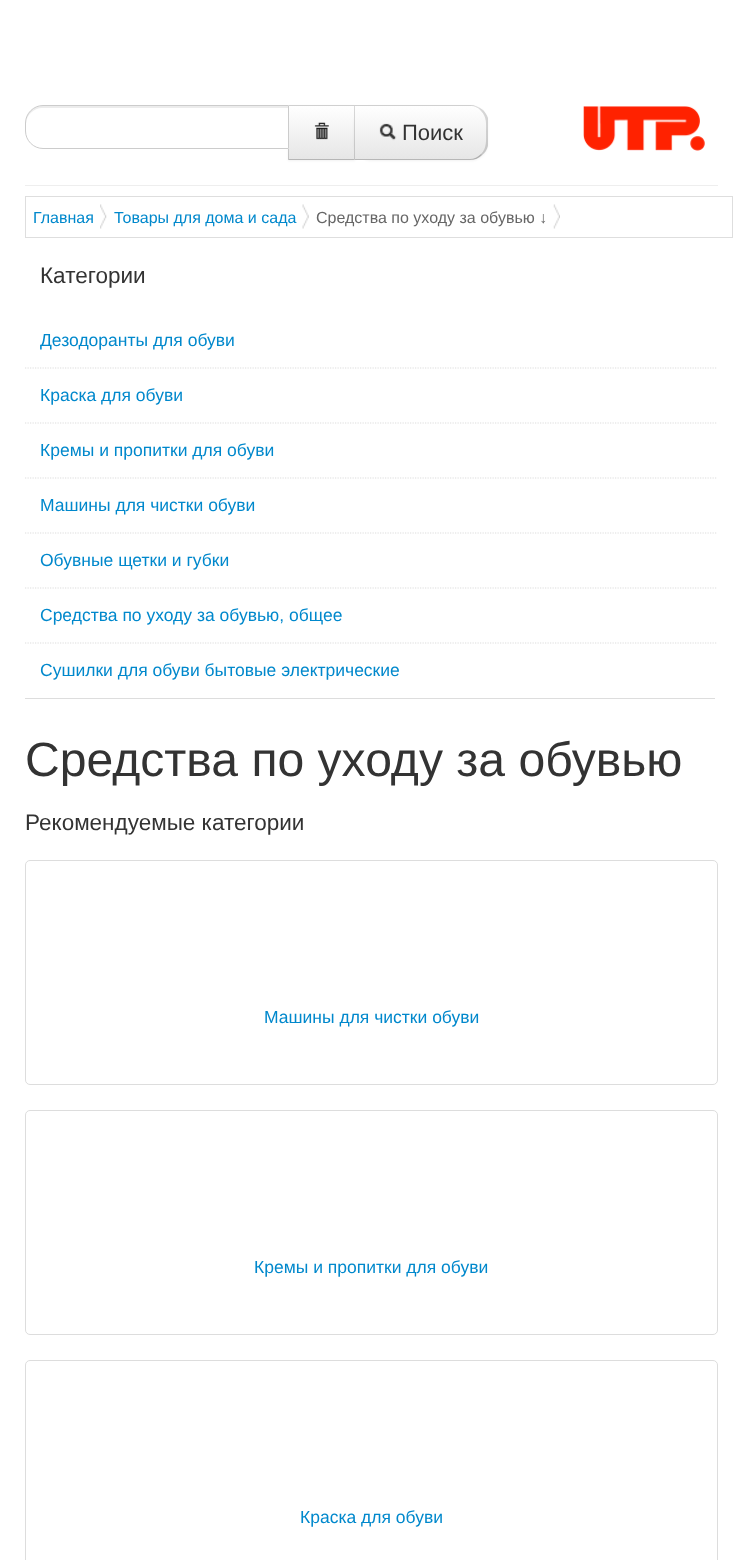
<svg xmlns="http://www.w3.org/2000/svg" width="742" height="1560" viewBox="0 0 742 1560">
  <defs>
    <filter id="blur1" x="-50%" y="-200%" width="200%" height="500%"><feGaussianBlur stdDeviation="1"/></filter>
    <linearGradient id="g1" gradientUnits="userSpaceOnUse" x1="321" y1="106" x2="321" y2="159"><stop offset="0" stop-color="#ffffff"/><stop offset="1" stop-color="#e6e6e6"/></linearGradient>
    <clipPath id="clip1"><path d="M354 105H470C480 105 488 113 488 123V142C488 152 480 160 470 160H354Z"/></clipPath>
    <linearGradient id="g2" gradientUnits="userSpaceOnUse" x1="421" y1="106" x2="421" y2="159"><stop offset="0" stop-color="#ffffff"/><stop offset="1" stop-color="#e6e6e6"/></linearGradient>
  </defs>
  <rect width="100%" height="100%" fill="#ffffff"/>
  <rect x="288" y="106" width="67" height="55" fill="#000000" fill-opacity="0.05" filter="url(#blur1)"/>
  <rect x="288" y="106" width="66" height="53" fill="url(#g1)"/>
  <path d="M288 105H355L354 106H289Z" fill="#d0d0d0"/>
  <path d="M355 160H288L289 159H354Z" fill="#000000" fill-opacity="0.25"/>
  <path d="M288 160V105L289 106V159Z" fill="#000000" fill-opacity="0.15"/>
  <path d="M43 105H289V149H43C33 149 25 141 25 131V123C25 113 33 105 43 105Z" fill="#ffffff"/>
  <path d="M42 108H288V106H42C33 106 26 113 26 122V124C26 115 34 108 42 108ZM28 140C27 137 26 135 26 132C26 135 27 138 28 140Z" fill="#ececec" fill-rule="evenodd"/>
  <path d="M43 105.5H288.5V148.5H43C33.5 148.5 25.5 140.5 25.5 131V123C25.5 113.5 33.5 105.5 43 105.5Z" fill="none" stroke="#cccccc"/>
  <image x="314" y="122" width="15" height="18" href="img1.png"/>
  <rect x="354" y="106" width="134" height="55" rx="18" fill="#000000" fill-opacity="0.05" filter="url(#blur1)"/>
  <path d="M354 105H470C480 105 488 113 488 123V142C488 152 480 160 470 160H354Z" fill="#f5f5f5"/>
  <g clip-path="url(#clip1)">
    <rect x="354" y="106" width="134" height="53" fill="url(#g2)"/>
  </g>
  <path d="M354 105L355 106H470C475 106 479 108 481 111L483 110C479 107 475 105 470 105Z" fill="#000000" fill-opacity="0.15"/>
  <path d="M488 146C487 150 485 153 482 155L481 154C487 148 486 140 486 132C486 124 487 117 481 111L483 110C485 112 487 115 488 118Z" fill="#000000" fill-opacity="0.15"/>
  <path d="M354 160H470C475 160 479 158 482 155L481 154C478 157 474 159 470 159H355Z" fill="#000000" fill-opacity="0.25"/>
  <path d="M354 105V160L355 159V106Z" fill="#000000" fill-opacity="0.15"/>
  <image x="379" y="123" width="18" height="18" href="img2.png"/>
  <text x="402" y="140" font-family="Liberation Sans" font-size="22" fill="#333333">Поиск</text>
  <image x="583" y="106" width="122" height="45" href="img3.png"/>
  <rect x="25" y="185" width="693" height="1" fill="#eeeeee"/>
  <rect x="25.5" y="196.5" width="707" height="41" fill="none" stroke="#dedede"/>
  <image x="100" y="204" width="7" height="25" href="img4.png"/>
  <text x="33" y="223" font-family="Liberation Sans" font-size="16" fill="#0088cc">Главная</text>
  <image x="302" y="204" width="7" height="25" href="img5.png"/>
  <text x="114" y="223" font-family="Liberation Sans" font-size="16" fill="#0088cc">Товары для дома и сада</text>
  <image x="553" y="204" width="7" height="25" href="img6.png"/>
  <text x="316" y="223" font-family="Liberation Sans" font-size="16" fill="#666666">Средства по уходу за обувью ↓</text>
  <text x="40" y="283" font-family="Liberation Sans" font-size="22.5" fill="#333333">Категории</text>
  <path d="M25 368H717.5" fill="none" stroke="#dddddd" stroke-width="1.2" stroke-dasharray="1.25 1.25"/>
  <text x="40" y="346" font-family="Liberation Sans" font-size="17.5" fill="#0088cc">Дезодоранты для обуви</text>
  <path d="M25 423H717.5" fill="none" stroke="#dddddd" stroke-width="1.2" stroke-dasharray="1.25 1.25"/>
  <text x="40" y="401" font-family="Liberation Sans" font-size="17.5" fill="#0088cc">Краска для обуви</text>
  <path d="M25 478H717.5" fill="none" stroke="#dddddd" stroke-width="1.2" stroke-dasharray="1.25 1.25"/>
  <text x="40" y="456" font-family="Liberation Sans" font-size="17.5" fill="#0088cc">Кремы и пропитки для обуви</text>
  <path d="M25 533H717.5" fill="none" stroke="#dddddd" stroke-width="1.2" stroke-dasharray="1.25 1.25"/>
  <text x="40" y="511" font-family="Liberation Sans" font-size="17.5" fill="#0088cc">Машины для чистки обуви</text>
  <path d="M25 588H717.5" fill="none" stroke="#dddddd" stroke-width="1.2" stroke-dasharray="1.25 1.25"/>
  <text x="40" y="566" font-family="Liberation Sans" font-size="17.5" fill="#0088cc">Обувные щетки и губки</text>
  <path d="M25 643H717.5" fill="none" stroke="#dddddd" stroke-width="1.2" stroke-dasharray="1.25 1.25"/>
  <text x="40" y="621" font-family="Liberation Sans" font-size="17.5" fill="#0088cc">Средства по уходу за обувью, общее</text>
  <rect x="25" y="698" width="690" height="1" fill="#dddddd"/>
  <text x="40" y="676" font-family="Liberation Sans" font-size="17.5" fill="#0088cc">Сушилки для обуви бытовые электрические</text>
  <text x="25" y="776" font-family="Liberation Sans" font-size="48.1" fill="#333333">Средства по уходу за обувью</text>
  <text x="25" y="830" font-family="Liberation Sans" font-size="22.5" fill="#333333">Рекомендуемые категории</text>
  <rect x="25.5" y="860.5" width="692" height="224" rx="4.5" fill="none" stroke="#dddddd"/>
  <text x="264" y="1023" font-family="Liberation Sans" font-size="17.5" fill="#0088cc">Машины для чистки обуви</text>
  <rect x="25.5" y="1110.5" width="692" height="224" rx="4.5" fill="none" stroke="#dddddd"/>
  <text x="254" y="1273" font-family="Liberation Sans" font-size="17.5" fill="#0088cc">Кремы и пропитки для обуви</text>
  <rect x="25.5" y="1360.5" width="692" height="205" rx="4.5" fill="none" stroke="#dddddd"/>
  <text x="300" y="1523" font-family="Liberation Sans" font-size="17.5" fill="#0088cc">Краска для обуви</text>
</svg>
